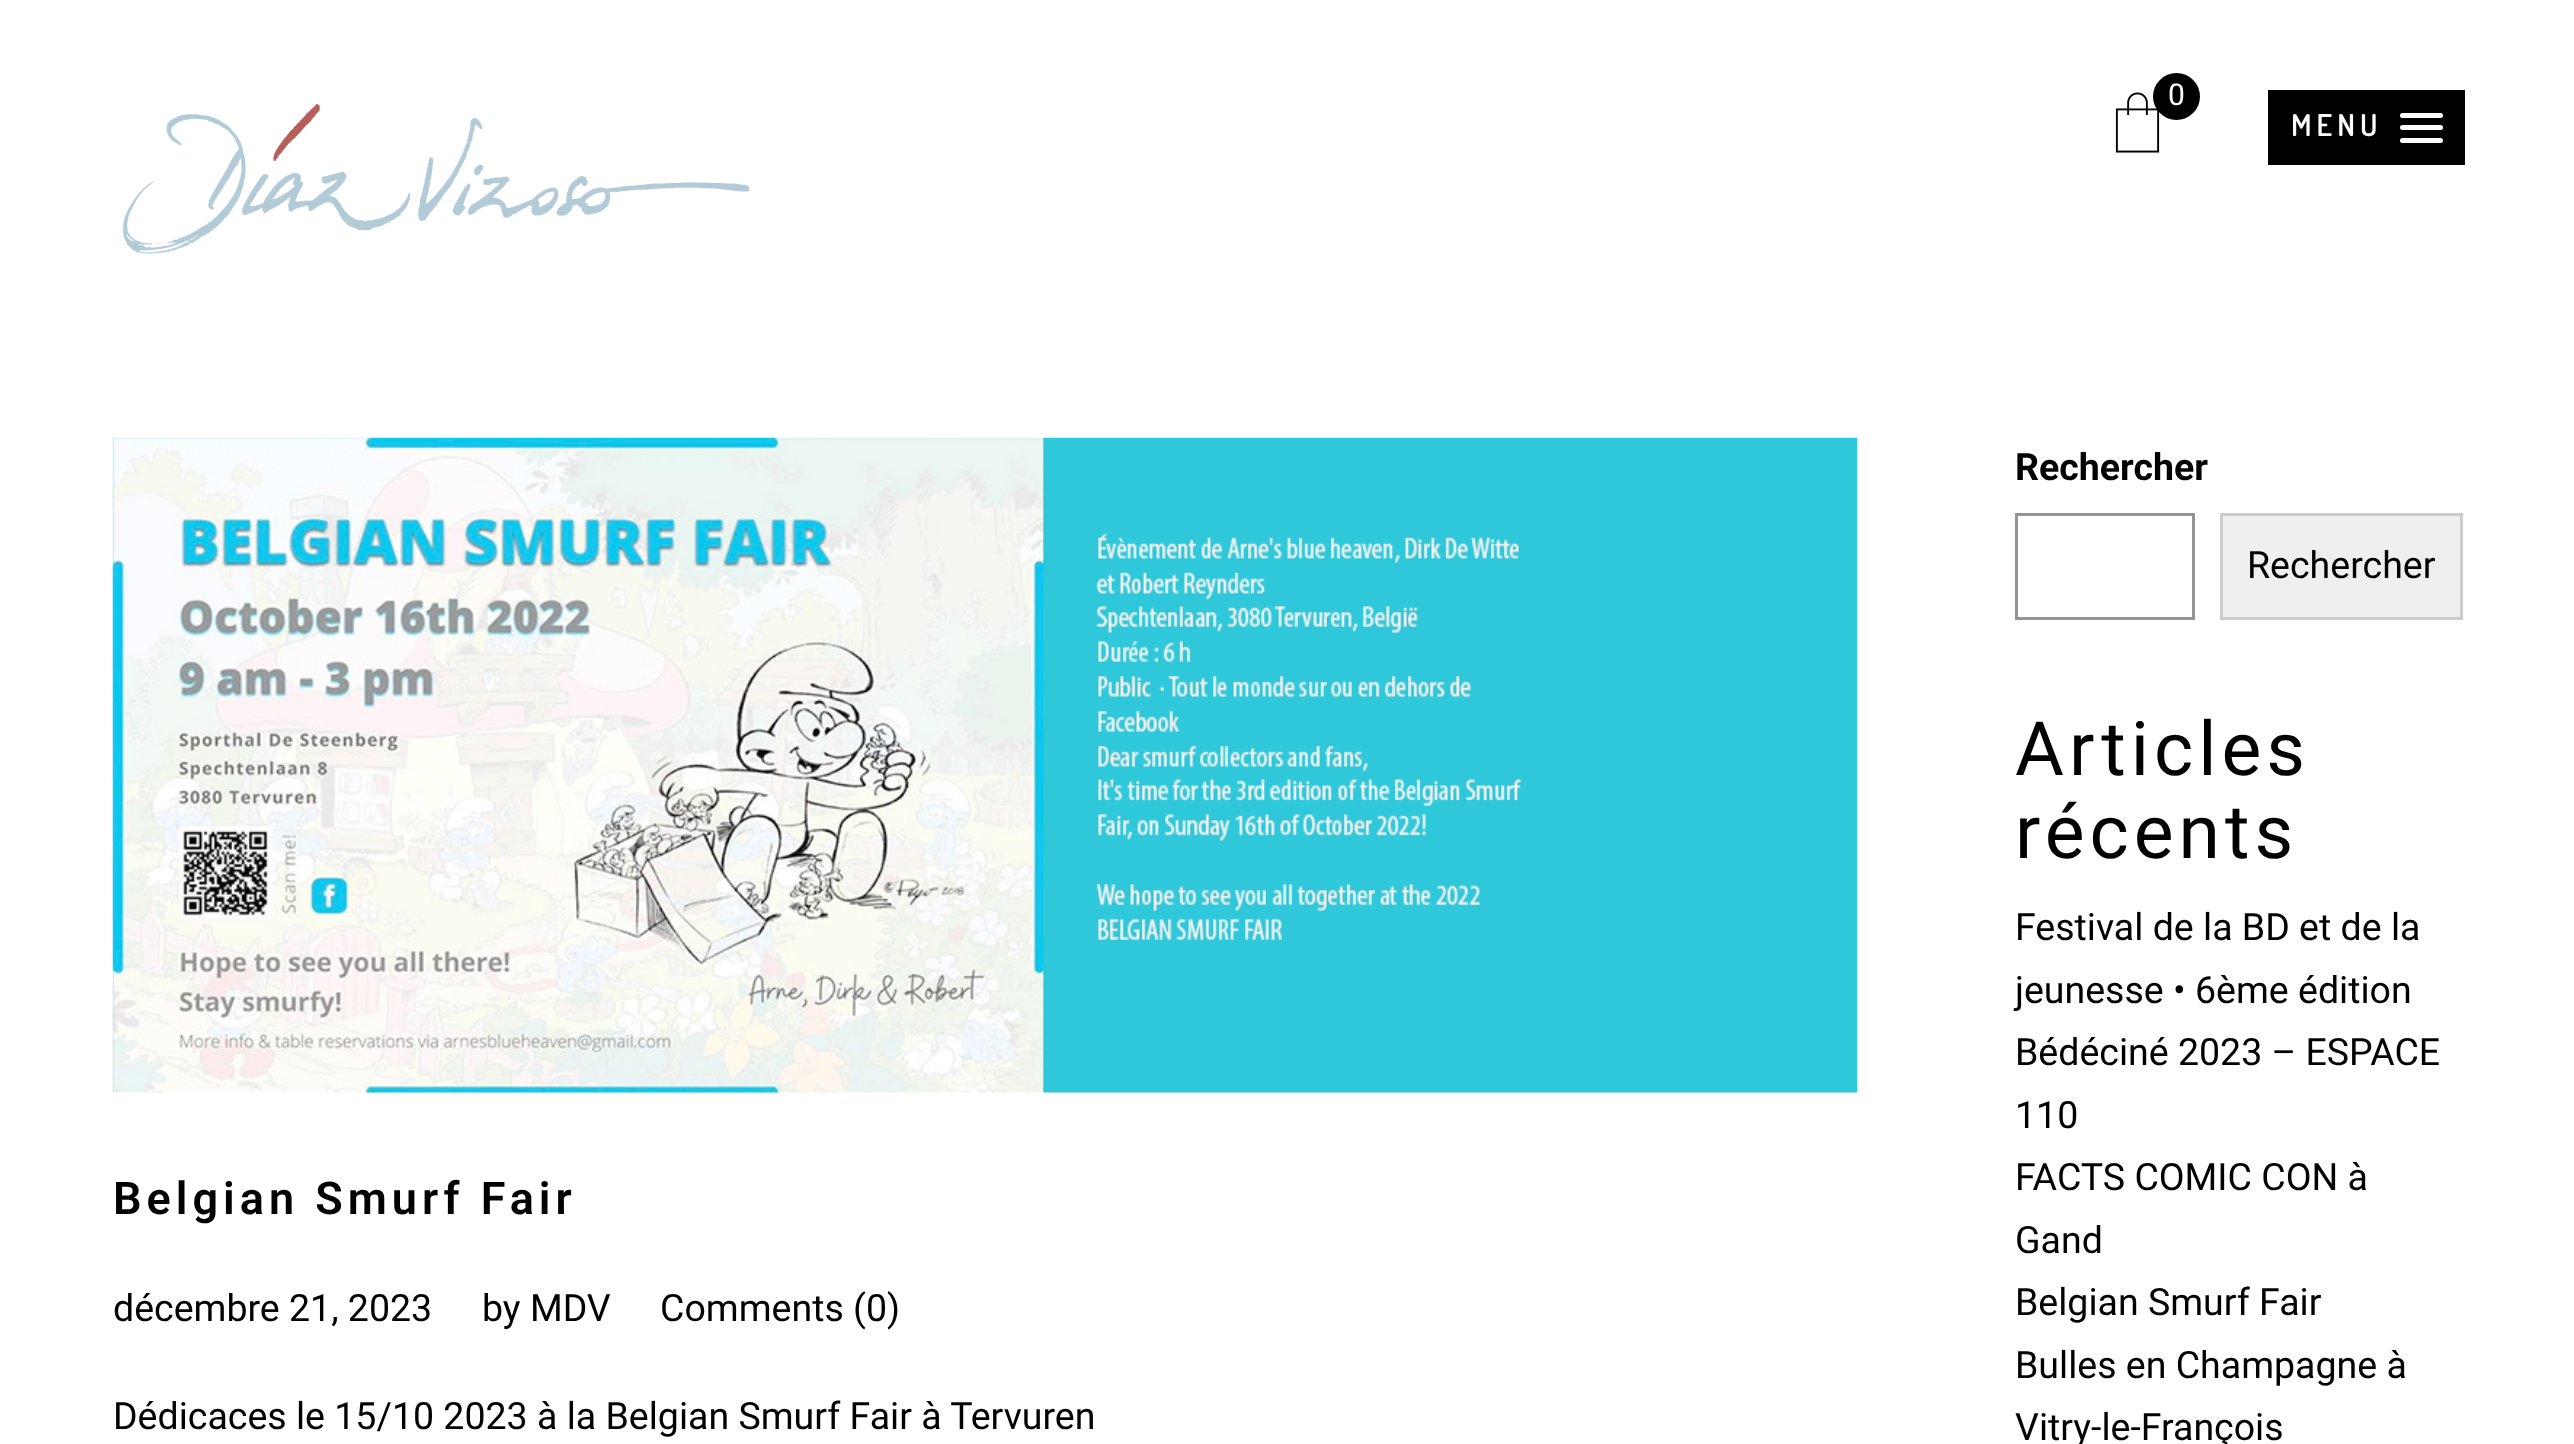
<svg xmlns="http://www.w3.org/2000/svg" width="2574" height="1444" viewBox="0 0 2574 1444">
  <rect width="100%" height="100%" fill="#ffffff"/>
  <image x="2115" y="92" width="45" height="61" href="img1.png"/>
  <circle cx="2176.5" cy="96.5" r="23.5" fill="#000000"/>
  <text x="2168" y="105" font-family="Roboto" font-size="30" fill="#ffffff">0</text>
  <image x="122" y="103" width="628" height="151" href="img2.png"/>
  <rect x="2268" y="90" width="197" height="75" fill="#000000"/>
  <text x="2291" y="136" font-family="Dosis" font-size="30" font-weight="600" letter-spacing="5" fill="#ffffff">MENU</text>
  <rect x="2400" y="113" width="43" height="5" rx="2.5" fill="#ffffff"/>
  <rect x="2400" y="125" width="43" height="5" rx="2.5" fill="#ffffff"/>
  <rect x="2400" y="138" width="43" height="5" rx="2.5" fill="#ffffff"/>
  <image x="112" y="437" width="1746" height="656" href="img3.png"/>
  <text x="113" y="1214" font-family="Roboto" font-size="45" font-weight="600" letter-spacing="5" fill="#000000">Belgian Smurf Fair</text>
  <text x="113" y="1321" font-family="Roboto" font-size="37.5" fill="#000000">décembre 21, 2023</text>
  <text x="482" y="1321" font-family="Roboto" font-size="37.5" fill="#000000">by MDV</text>
  <text x="660" y="1321" font-family="Roboto" font-size="37.5" fill="#000000">Comments (0)</text>
  <text x="113" y="1429" font-family="Roboto" font-size="37.5" fill="#000000">Dédicaces le 15/10 2023 à la Belgian Smurf Fair à Tervuren</text>
  <text x="2015" y="480" font-family="Roboto" font-size="37.5" font-weight="bold" fill="#000000">Rechercher</text>
  <rect x="2016.5" y="514.5" width="177" height="104" fill="none" stroke="#949494" stroke-width="3"/>
  <rect x="2221.5" y="514.5" width="240" height="104" fill="#efefef" stroke="#cccccc" stroke-width="3"/>
  <text x="2247" y="578" font-family="Roboto" font-size="37.5" fill="#000000">Rechercher</text>
  <text x="2015" y="775" font-family="Roboto" font-size="75" letter-spacing="5" fill="#000000">Articles</text>
  <text x="2015" y="858" font-family="Roboto" font-size="75" letter-spacing="5" fill="#000000">récents</text>
  <text x="2015" y="940" font-family="Roboto" font-size="37.5" fill="#000000">Festival de la BD et de la</text>
  <text x="2015" y="1003" font-family="Roboto" font-size="37.5" fill="#000000">jeunesse • 6ème édition</text>
  <text x="2015" y="1065" font-family="Roboto" font-size="37.5" fill="#000000">Bédéciné 2023 – ESPACE</text>
  <text x="2015" y="1128" font-family="Roboto" font-size="37.5" fill="#000000">110</text>
  <text x="2015" y="1190" font-family="Roboto" font-size="37.5" fill="#000000">FACTS COMIC CON à</text>
  <text x="2015" y="1253" font-family="Roboto" font-size="37.5" fill="#000000">Gand</text>
  <text x="2015" y="1315" font-family="Roboto" font-size="37.5" fill="#000000">Belgian Smurf Fair</text>
  <text x="2015" y="1378" font-family="Roboto" font-size="37.5" fill="#000000">Bulles en Champagne à</text>
  <text x="2015" y="1440" font-family="Roboto" font-size="37.5" fill="#000000">Vitry-le-François</text>
</svg>
